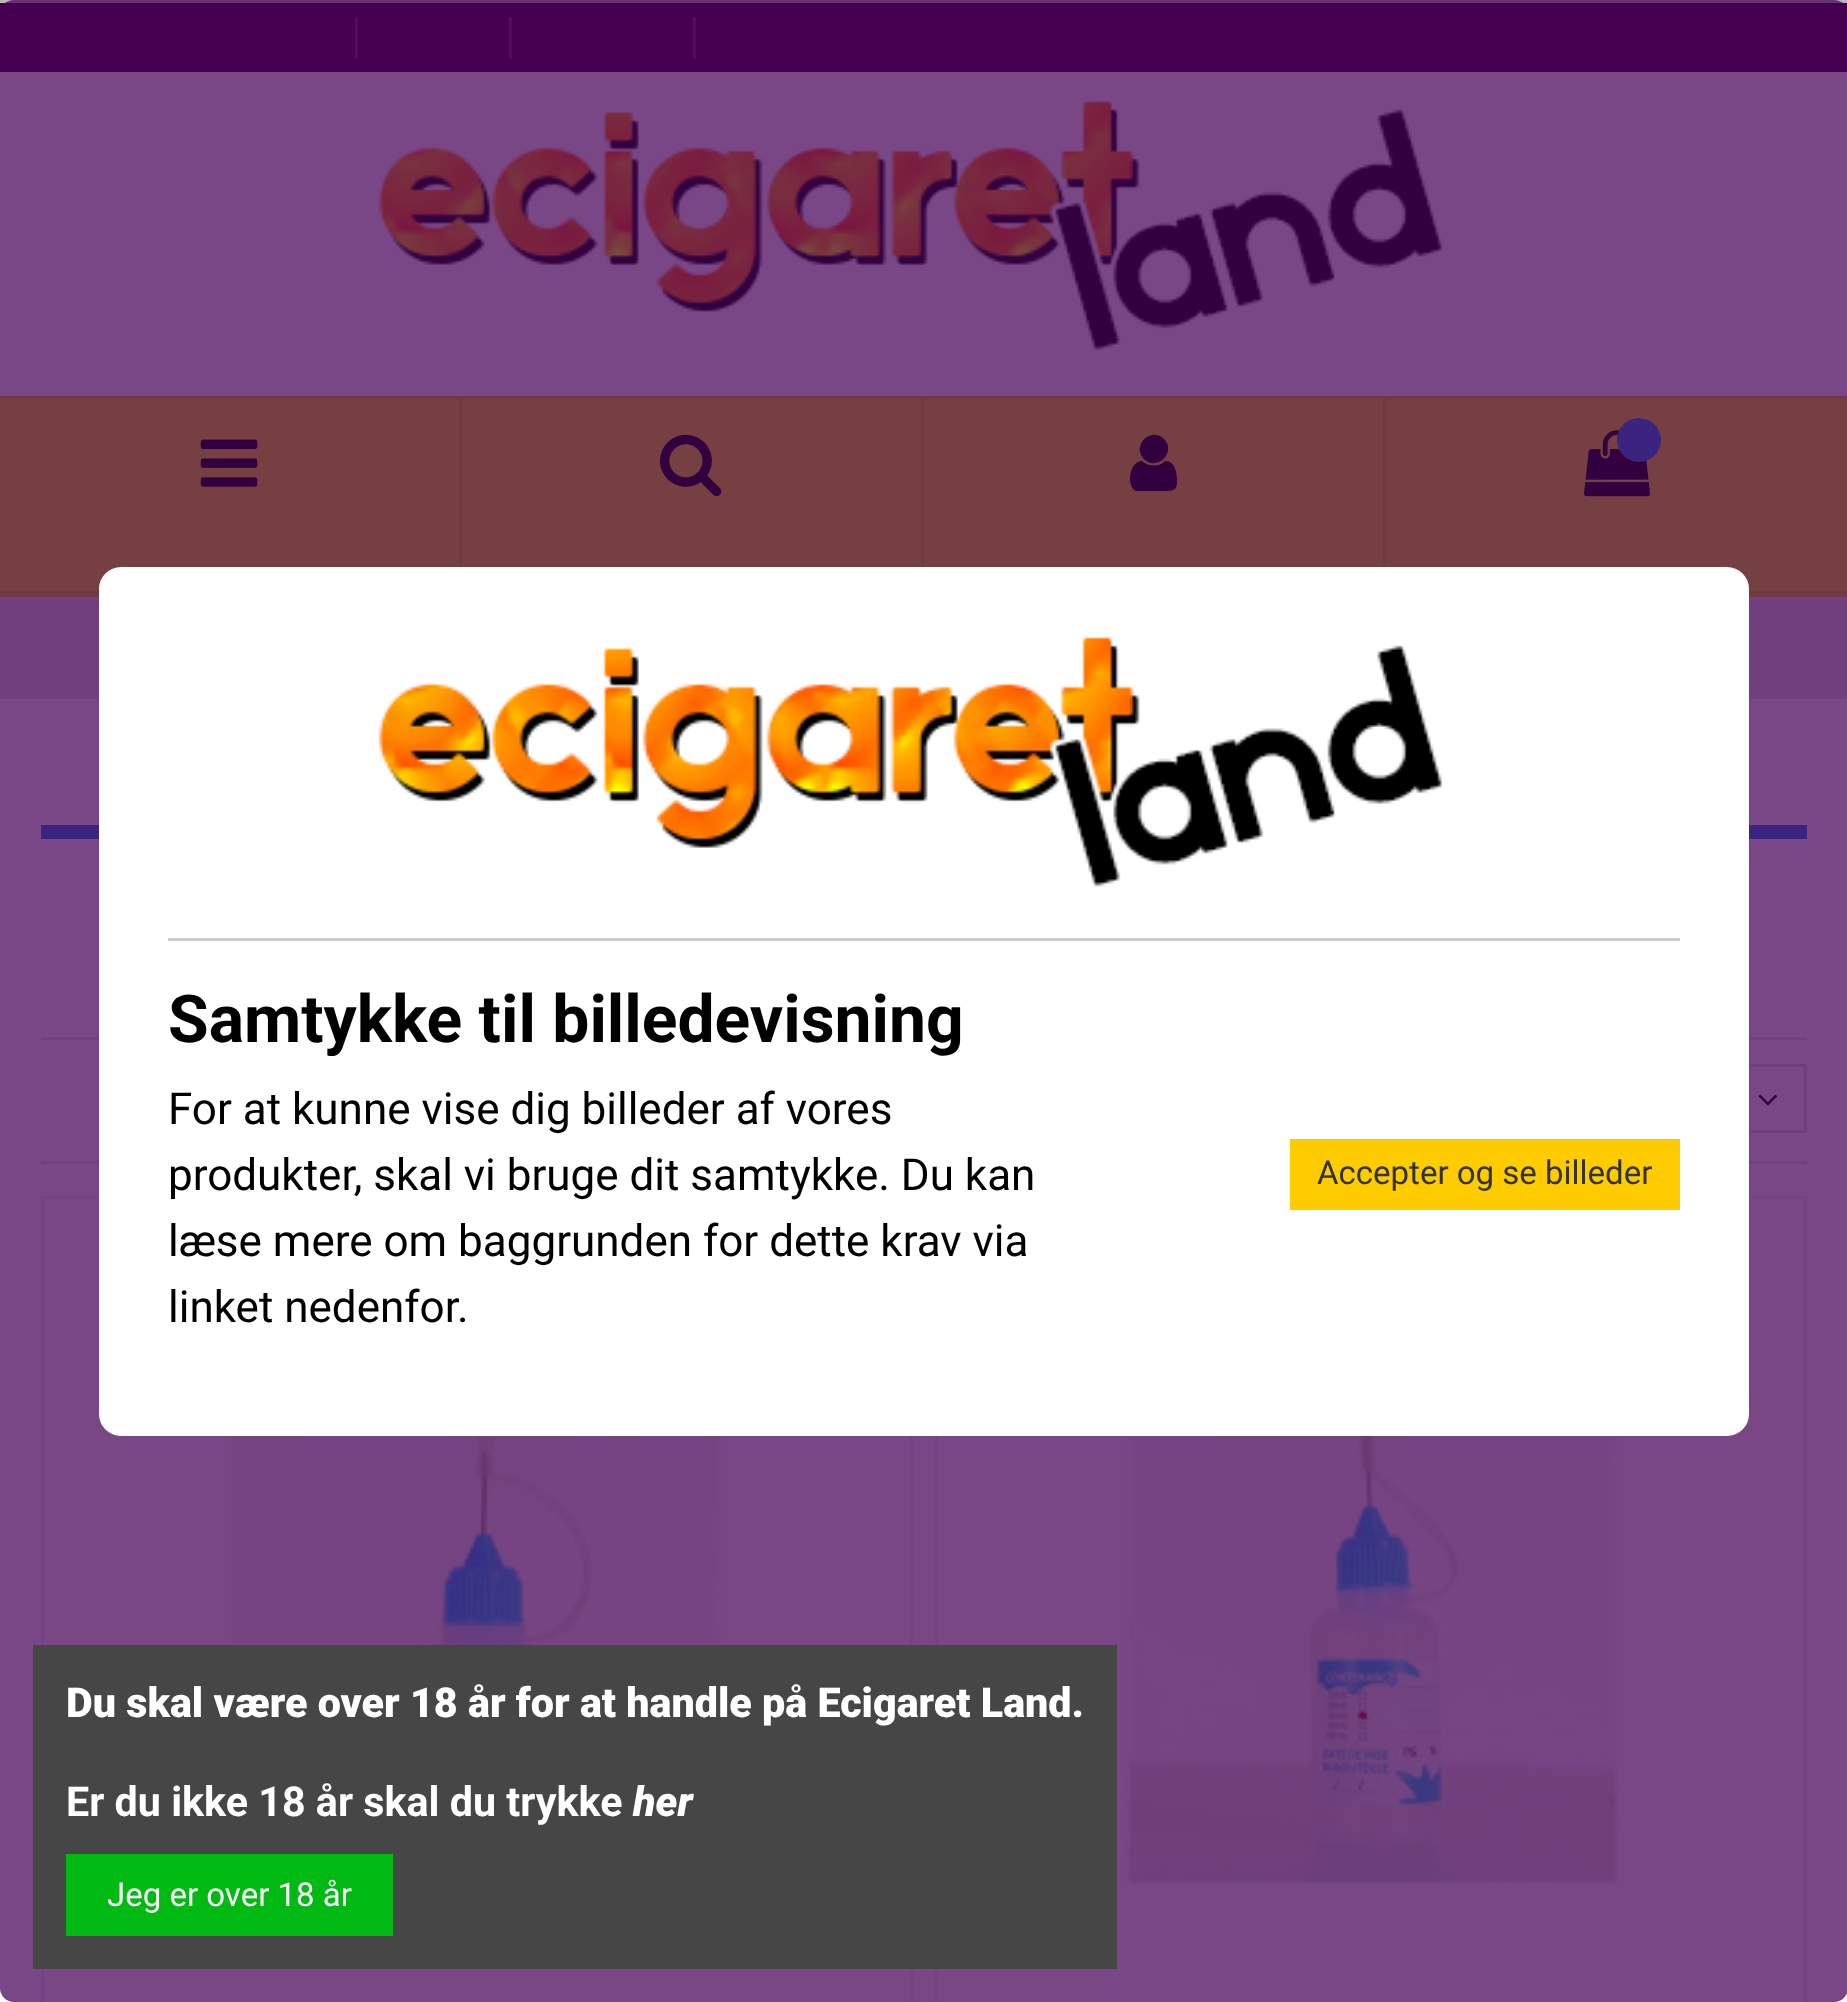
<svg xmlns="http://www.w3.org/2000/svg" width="1847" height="2002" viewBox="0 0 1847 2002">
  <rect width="100%" height="100%" fill="#ffffff"/>
  <rect x="-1.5" y="1.5" width="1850" height="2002" fill="none" stroke="#bdb7b8" stroke-width="3"/>
  <rect x="0" y="3" width="1847" height="69" fill="#480040"/>
  <rect x="355" y="17" width="3" height="41" fill="#6d3366"/>
  <rect x="509" y="17" width="3" height="41" fill="#6d3366"/>
  <rect x="693" y="17" width="3" height="41" fill="#6d3366"/>
  <rect x="0" y="594" width="1847" height="3" fill="#e0d300"/>
  <image x="378" y="101" width="1064" height="250" href="img1.png"/>
  <rect x="0" y="396" width="1847" height="198" fill="#f5e70f"/>
  <path d="M0 396H462L459 399H0Z" fill="#dcd010"/>
  <path d="M462 396V594L459 591V399Z" fill="#151515" fill-opacity="0.11"/>
  <path d="M462 594H0V591H459Z" fill="#151515" fill-opacity="0.11"/>
  <image x="200" y="439" width="58" height="48" href="img2.png"/>
  <path d="M462 396H924L921 399H462Z" fill="#dcd010"/>
  <path d="M924 396V594L921 591V399Z" fill="#151515" fill-opacity="0.11"/>
  <image x="660" y="434" width="62" height="63" href="img3.png"/>
  <path d="M924 396H1386L1383 399H924Z" fill="#dcd010"/>
  <path d="M1386 396V594L1383 591V399Z" fill="#151515" fill-opacity="0.11"/>
  <path d="M1177 482C1177 491 1172 491 1164 491H1136C1126 487 1129 461 1142 461C1149 467 1159 467 1165 461C1176 461 1177 474 1177 482ZM1164 439C1177 452 1157 472 1144 459C1131 446 1151 426 1164 439Z" fill="#000000"/>
  <rect x="1386" y="396" width="461" height="3" fill="#dcd010"/>
  <rect x="1749" y="591" width="98" height="3" fill="#dcd010"/>
  <image x="1584" y="430" width="66" height="67" href="img4.png"/>
  <circle cx="1639" cy="440" r="22" fill="#2183e6"/>
  <rect x="0" y="597" width="1847" height="102" fill="#e6e6e6"/>
  <rect x="41" y="825" width="1766" height="14" fill="#2183e6"/>
  <rect x="41" y="1037" width="1766" height="3" fill="#e7e7e7"/>
  <rect x="41" y="1161" width="1766" height="3" fill="#e7e7e7"/>
  <rect x="1684.5" y="1065.5" width="121" height="66" fill="none" stroke="#e3e3e3" stroke-width="3"/>
  <image x="1758" y="1094" width="19" height="12" href="img5.png"/>
  <rect x="42.5" y="1197.5" width="869" height="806" fill="none" stroke="#f0f0f0" stroke-width="3"/>
  <image x="230" y="1436" width="493" height="209" href="img6.png"/>
  <rect x="936.5" y="1197.5" width="869" height="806" fill="none" stroke="#f0f0f0" stroke-width="3"/>
  <image x="1126" y="1436" width="494" height="450" href="img7.png"/>
  <rect x="0" y="0" width="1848" height="2002" rx="14" fill="#450057" fill-opacity="0.72"/>
  <rect x="99" y="567" width="1650" height="869" rx="22" fill="#ffffff"/>
  <rect x="168" y="938" width="1512" height="3" fill="#cccccc"/>
  <image x="378" y="637" width="1064" height="250" href="img8.png"/>
  <text x="168" y="1042" font-family="Roboto" font-size="66" font-weight="bold" fill="#000000">Samtykke til billedevisning</text>
  <text x="168" y="1124" font-family="Roboto" font-size="44" fill="#000000">For at kunne vise dig billeder af vores</text>
  <text x="168" y="1190" font-family="Roboto" font-size="44" fill="#000000">produkter, skal vi bruge dit samtykke. Du kan</text>
  <text x="168" y="1256" font-family="Roboto" font-size="44" fill="#000000">læse mere om baggrunden for dette krav via</text>
  <text x="168" y="1322" font-family="Roboto" font-size="44" fill="#000000">linket nedenfor.</text>
  <rect x="1290" y="1139" width="390" height="71" fill="#ffcc00"/>
  <text x="1317" y="1184" font-family="Roboto" font-size="33" fill="#333333">Accepter og se billeder</text>
  <rect x="33" y="1645" width="1084" height="324" fill="#464646"/>
  <text x="66" y="1717" font-family="Roboto" font-size="41.25" font-weight="900" fill="#ffffff">Du skal være over 18 år for at handle på Ecigaret Land.</text>
  <text x="66" y="1816" font-family="Roboto" font-size="41.25" font-weight="bold" fill="#ffffff">Er du ikke 18 år skal du trykke</text>
  <text x="633" y="1816" font-family="Roboto" font-size="41.25" font-weight="900" font-style="italic" fill="#ffffff">her</text>
  <rect x="66" y="1854" width="327" height="82" fill="#00ba13"/>
  <text x="107" y="1906" font-family="Roboto" font-size="33" fill="#ffffff">Jeg er over 18 år</text>
</svg>
